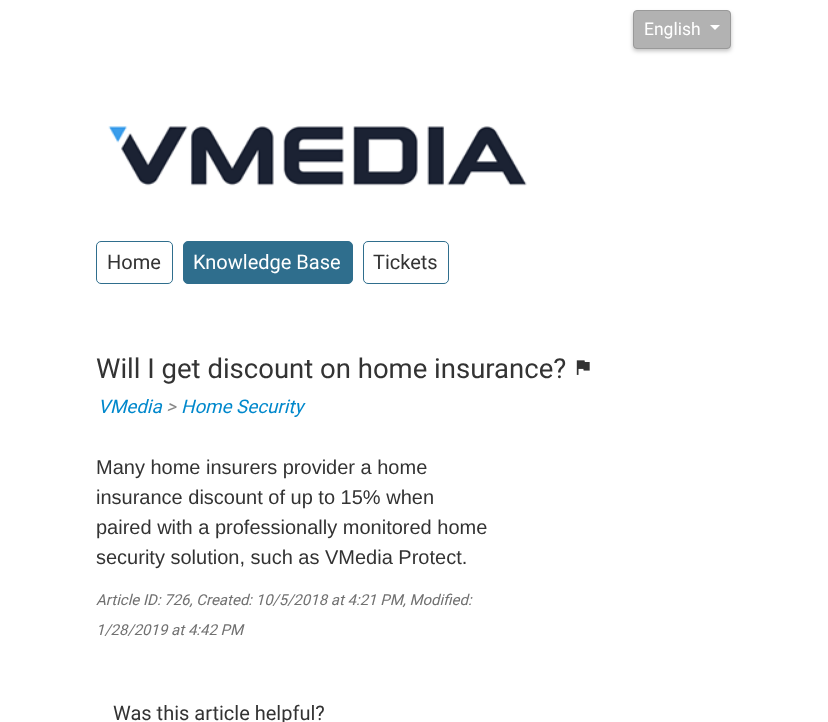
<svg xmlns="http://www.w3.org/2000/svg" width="828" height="722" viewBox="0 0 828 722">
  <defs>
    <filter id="blur1" x="-50%" y="-200%" width="200%" height="500%"><feGaussianBlur stdDeviation="2"/></filter>
  </defs>
  <rect width="100%" height="100%" fill="#ffffff"/>
  <rect x="633" y="13" width="98" height="38" rx="4" fill="#000000" fill-opacity="0.25" filter="url(#blur1)"/>
  <rect x="633.5" y="10.5" width="97" height="38" rx="3.5" fill="#b2b2b2" stroke="#999999"/>
  <text x="644" y="35" font-family="Roboto" font-size="17.5" fill="#ffffff">English</text>
  <path d="M710 25H720L715 30Z" fill="#ffffff"/>
  <image x="108" y="126" width="419" height="60" href="img1.png"/>
  <rect x="96.5" y="241.5" width="76" height="42" rx="4.5" fill="none" stroke="#2f6e8d"/>
  <text x="107" y="269" font-family="Roboto" font-size="20" fill="#333333">Home</text>
  <rect x="183.5" y="241.5" width="169" height="42" rx="4.5" fill="#2f6e8d" stroke="#2f6e8d"/>
  <text x="193" y="269" font-family="Roboto" font-size="20" fill="#ffffff">Knowledge Base</text>
  <rect x="363.5" y="241.5" width="85" height="42" rx="4.5" fill="none" stroke="#2f6e8d"/>
  <text x="373" y="269" font-family="Roboto" font-size="20" fill="#333333">Tickets</text>
  <text x="96" y="378" font-family="Roboto" font-size="27.5" fill="#333333">Will I get discount on home insurance?</text>
  <image x="576" y="360" width="14" height="15" href="img2.png"/>
  <text x="98" y="413" font-family="Roboto" font-size="18.75" font-style="italic" fill="#0088cc">VMedia</text>
  <text x="166" y="413" font-family="Roboto" font-size="18.75" font-style="italic" fill="#888888">&gt;</text>
  <text x="181" y="413" font-family="Roboto" font-size="18.75" font-style="italic" fill="#0088cc">Home Security</text>
  <text x="96" y="474" font-family="Liberation Sans" font-size="20" fill="#333333">Many home insurers provider a home</text>
  <text x="96" y="504" font-family="Liberation Sans" font-size="20" fill="#333333">insurance discount of up to 15% when</text>
  <text x="96" y="534" font-family="Liberation Sans" font-size="20" fill="#333333">paired with a professionally monitored home</text>
  <text x="96" y="564" font-family="Liberation Sans" font-size="20" fill="#333333">security solution, such as VMedia Protect.</text>
  <text x="96" y="605" font-family="Roboto" font-size="15" font-style="italic" fill="#707070">Article ID: 726, Created: 10/5/2018 at 4:21 PM, Modified:</text>
  <text x="96" y="635" font-family="Roboto" font-size="15" font-style="italic" fill="#707070">1/28/2019 at 4:42 PM</text>
  <text x="113" y="720" font-family="Roboto" font-size="20" fill="#333333">Was this article helpful?</text>
</svg>
